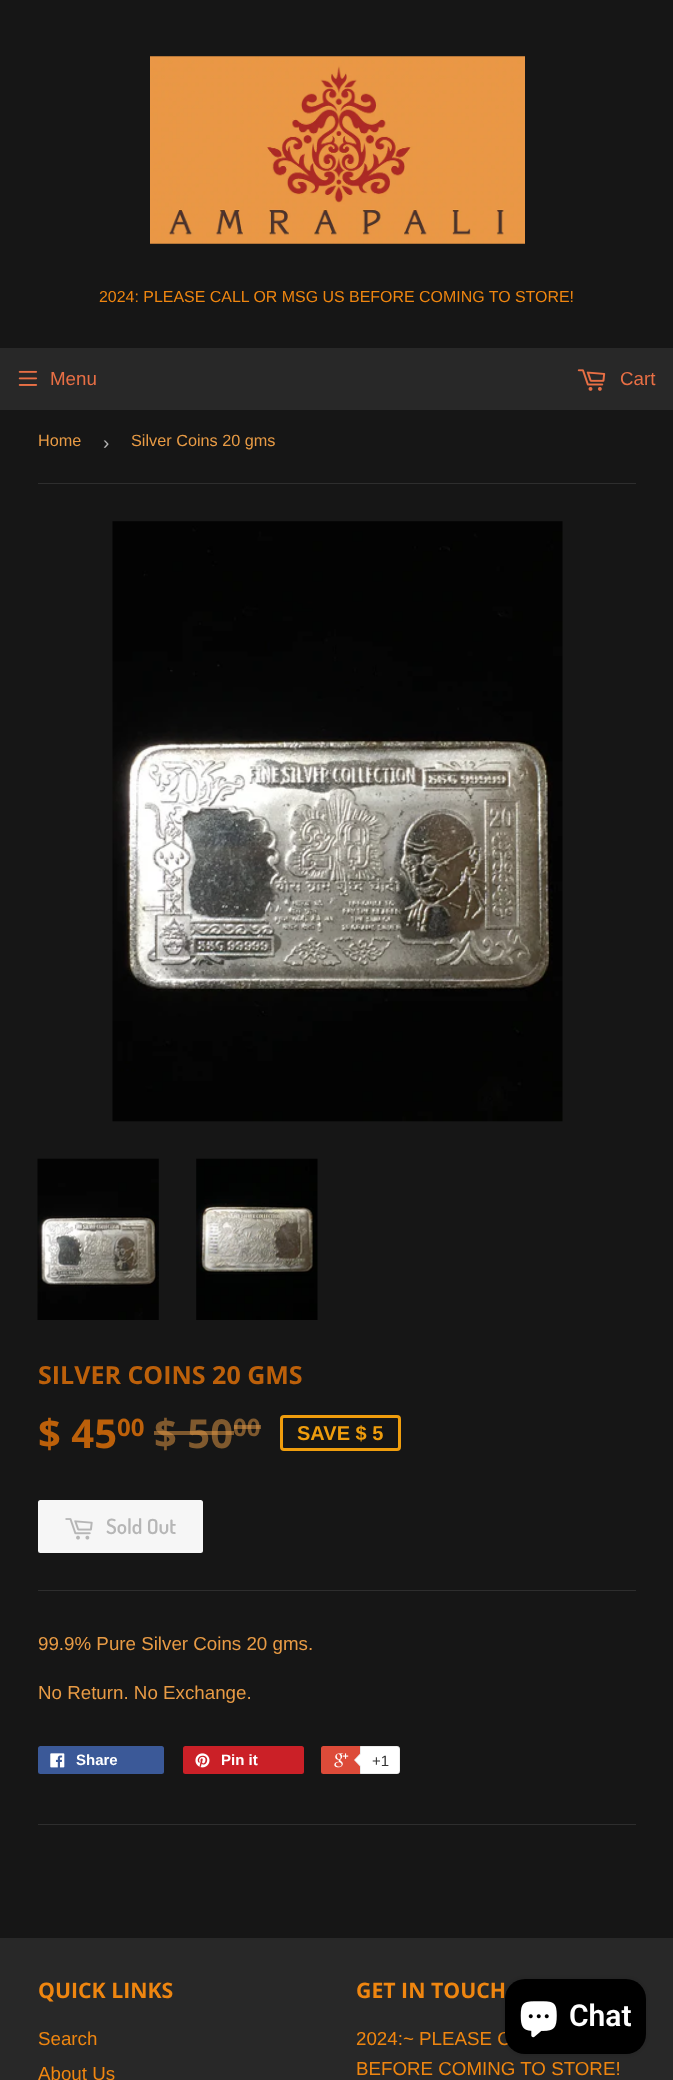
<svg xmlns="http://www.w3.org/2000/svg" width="673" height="2080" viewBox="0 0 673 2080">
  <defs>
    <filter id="blur1" x="-50%" y="-200%" width="200%" height="500%"><feGaussianBlur stdDeviation="3"/></filter>
  </defs>
  <rect width="100%" height="100%" fill="#161616"/>
  <image x="150" y="56" width="375" height="188" href="img1.png"/>
  <text x="99" y="302" font-family="Liberation Sans" font-size="15.95" fill="#ef8610">2024: PLEASE CALL OR MSG US BEFORE COMING TO STORE!</text>
  <rect x="0" y="348" width="673" height="62" fill="#282828"/>
  <image x="18" y="370" width="20" height="16" href="img2.png"/>
  <text x="50" y="385" font-family="Liberation Sans" font-size="18.75" fill="#e86f45">Menu</text>
  <image x="577" y="369" width="29" height="22" href="img3.png"/>
  <text x="620" y="385" font-family="Liberation Sans" font-size="18.75" fill="#e86f45">Cart</text>
  <rect x="38" y="483" width="598" height="1" fill="#2e2e2e"/>
  <text x="38" y="446" font-family="Liberation Sans" font-size="16.25" fill="#e89b45">Home</text>
  <text x="103" y="449" font-family="Liberation Sans" font-size="18.75" fill="#b6b6b6">›</text>
  <text x="131" y="446" font-family="Liberation Sans" font-size="16.25" fill="#e89b45">Silver Coins 20 gms</text>
  <image x="112" y="521" width="451" height="601" href="img4.png"/>
  <image x="37" y="1158" width="122" height="162" href="img5.png"/>
  <image x="196" y="1158" width="122" height="162" href="img6.png"/>
  <text x="38" y="1384" font-family="Open Sans" font-size="25" font-weight="bold" fill="#bc600a">SILVER COINS 20 GMS</text>
  <text x="38" y="1448" font-family="Open Sans" font-size="40" font-weight="bold" fill="#bc600a">$ 45</text>
  <text x="117" y="1436" font-family="Open Sans" font-size="24" font-weight="bold" fill="#bc600a">00</text>
  <text x="154" y="1448" font-family="Open Sans" font-size="40" font-weight="bold" fill="#7f592e">$ 50</text>
  <rect x="154" y="1431" width="80" height="4" fill="#e89b45" fill-opacity="0.5"/>
  <text x="233" y="1436" font-family="Open Sans" font-size="24" font-weight="bold" fill="#7f592e">00</text>
  <rect x="234" y="1425" width="27" height="4" fill="#e89b45" fill-opacity="0.5"/>
  <rect x="281.5" y="1416.5" width="118" height="33" rx="2.5" fill="none" stroke="#ef9d0d" stroke-width="3"/>
  <text x="297" y="1440" font-family="Liberation Sans" font-size="20" font-weight="bold" fill="#ef9d0d">SAVE $ 5</text>
  <rect x="38" y="1500" width="165" height="53" rx="2.5" fill="#f6f6f6"/>
  <image x="65" y="1518" width="28" height="22" href="img7.png"/>
  <text x="106" y="1534" font-family="Dosis" font-size="21" font-weight="600" fill="#b6b6b6">Sold Out</text>
  <rect x="38" y="1590" width="598" height="1" fill="#2e2e2e"/>
  <text x="38" y="1650" font-family="Liberation Sans" font-size="18.75" fill="#e89b45">99.9% Pure Silver Coins 20 gms.</text>
  <text x="38" y="1699" font-family="Liberation Sans" font-size="18.75" fill="#e89b45">No Return. No Exchange.</text>
  <rect x="38" y="1746" width="126" height="28" rx="2.5" fill="#3b5998"/>
  <image x="50" y="1753" width="15" height="15" href="img8.png"/>
  <text x="76" y="1765" font-family="Liberation Sans" font-size="15" font-weight="bold" fill="#ffffff">Share</text>
  <rect x="183" y="1746" width="121" height="28" rx="2.5" fill="#cb2027"/>
  <image x="195" y="1753" width="15" height="15" href="img9.png"/>
  <text x="221" y="1765" font-family="Liberation Sans" font-size="15" font-weight="bold" fill="#ffffff">Pin it</text>
  <rect x="321" y="1746" width="77" height="28" rx="2.5" fill="#dd4b39"/>
  <image x="334" y="1753" width="15" height="15" href="img10.png"/>
  <path d="M360.5 1746.5H397.5C398.5 1746.5 399.5 1747.5 399.5 1748.5V1771.5C399.5 1772.5 398.5 1773.5 397.5 1773.5H360.5Z" fill="#ffffff" stroke="#ececec"/>
  <path d="M361 1752.5V1767.5L354 1760Z" fill="#ececec"/>
  <path d="M362.5 1752.5V1767.5L355 1760Z" fill="#ffffff"/>
  <text x="372" y="1766" font-family="Liberation Sans" font-size="15" fill="#333333">+1</text>
  <rect x="38" y="1824" width="598" height="1" fill="#2e2e2e"/>
  <rect x="0" y="1938" width="673" height="142" fill="#282828"/>
  <text x="38" y="1998" font-family="Open Sans" font-size="21.25" font-weight="bold" fill="#ef8610">QUICK LINKS</text>
  <text x="38" y="2045" font-family="Liberation Sans" font-size="18.75" fill="#ef8610">Search</text>
  <text x="38" y="2080" font-family="Liberation Sans" font-size="18.75" fill="#ef8610">About Us</text>
  <text x="356" y="1998" font-family="Open Sans" font-size="21.25" font-weight="bold" fill="#ef8610">GET IN TOUCH</text>
  <text x="356" y="2045" font-family="Liberation Sans" font-size="18.75" fill="#ef8610">2024:~ PLEASE C</text>
  <text x="356" y="2075" font-family="Liberation Sans" font-size="18.75" fill="#ef8610">BEFORE COMING TO STORE!</text>
  <rect x="505" y="1979" width="141" height="75" rx="20" fill="#000000" fill-opacity="0.15" filter="url(#blur1)"/>
  <rect x="505" y="1979" width="141" height="75" rx="20" fill="#000000"/>
  <image x="520" y="2001" width="37" height="37" href="img11.png"/>
  <text x="569" y="2026" font-family="Roboto" font-size="30" font-weight="600" fill="#ffffff">Chat</text>
</svg>
